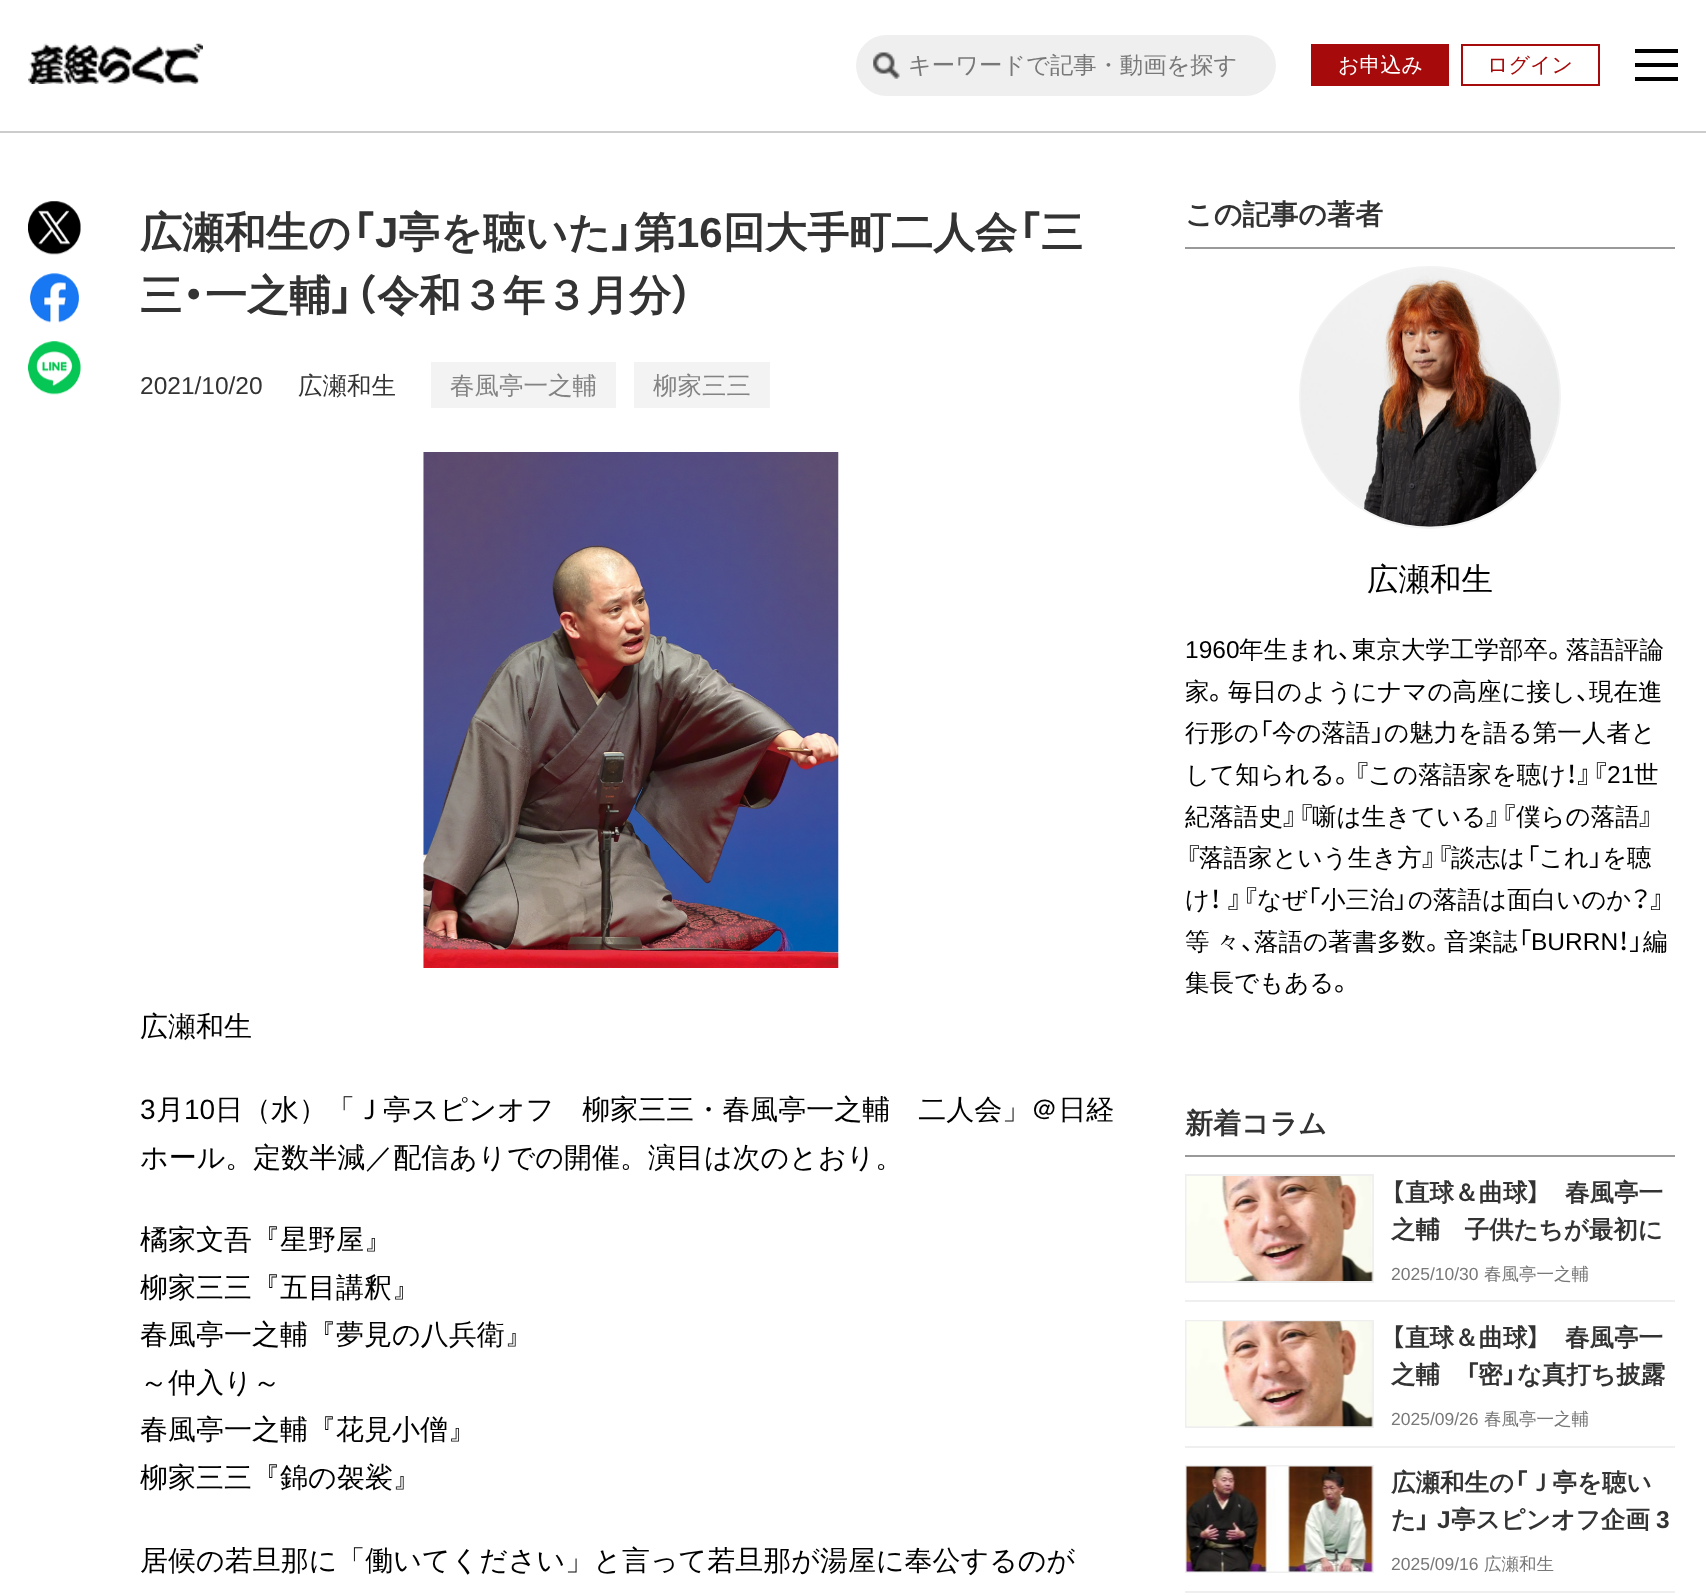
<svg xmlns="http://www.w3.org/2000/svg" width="1706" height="1595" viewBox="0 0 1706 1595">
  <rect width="100%" height="100%" fill="#ffffff"/>
  <rect x="0" y="131" width="1706" height="2" fill="#cccccc"/>
  <image x="28" y="43" width="175" height="41" href="img1.png"/>
  <rect x="856" y="35" width="420" height="61" rx="30.5" fill="#efefef"/>
  <image x="873" y="52" width="27" height="27" href="img2.png"/>
  <text x="908" y="73" font-family="WenQuanYi Zen Hei" font-size="23.3" font-weight="500" fill="#787878">キーワードで記事・動画を探す</text>
  <rect x="1311" y="44" width="138" height="42" fill="#a70a0a"/>
  <text x="1338" y="72" font-family="WenQuanYi Zen Hei" font-size="21" font-weight="500" fill="#ffffff">お申込み</text>
  <rect x="1462" y="45" width="137" height="40" fill="none" stroke="#a70a0a" stroke-width="2"/>
  <text x="1487" y="72" font-family="WenQuanYi Zen Hei" font-size="21" font-weight="500" fill="#a70a0a">ログイン</text>
  <rect x="1635" y="49" width="43" height="4" fill="#000000"/>
  <rect x="1635" y="63" width="43" height="4" fill="#000000"/>
  <rect x="1635" y="77" width="43" height="4" fill="#000000"/>
  <image x="28" y="201" width="53" height="54" href="img3.png"/>
  <image x="29" y="273" width="50" height="50" href="img4.png"/>
  <image x="28" y="341" width="53" height="54" href="img5.png"/>
  <text x="140" y="247" font-family="WenQuanYi Zen Hei" font-size="42" font-weight="bold" fill="#333333">広瀬和生の</text>
  <text x="351" y="247" font-family="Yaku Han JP" font-size="42" font-weight="bold" fill="#333333">「</text>
  <text x="375" y="247" font-family="Liberation Sans" font-size="42" font-weight="bold" fill="#333333">J</text>
  <text x="398" y="247" font-family="WenQuanYi Zen Hei" font-size="42" font-weight="bold" fill="#333333">亭を聴いた</text>
  <text x="611" y="247" font-family="Yaku Han JP" font-size="42" font-weight="bold" fill="#333333">」</text>
  <text x="634" y="247" font-family="WenQuanYi Zen Hei" font-size="42" font-weight="bold" fill="#333333">第</text>
  <text x="676" y="247" font-family="Liberation Sans" font-size="42" font-weight="bold" fill="#333333">16</text>
  <text x="723" y="247" font-family="WenQuanYi Zen Hei" font-size="42" font-weight="bold" fill="#333333">回大手町二人会</text>
  <text x="1017" y="247" font-family="Yaku Han JP" font-size="42" font-weight="bold" fill="#333333">「</text>
  <text x="1041" y="247" font-family="WenQuanYi Zen Hei" font-size="42" font-weight="bold" fill="#333333">三</text>
  <text x="140" y="310" font-family="WenQuanYi Zen Hei" font-size="42" font-weight="bold" fill="#333333">三</text>
  <text x="182" y="310" font-family="Yaku Han JP" font-size="42" font-weight="bold" fill="#333333">・</text>
  <text x="205" y="310" font-family="WenQuanYi Zen Hei" font-size="42" font-weight="bold" fill="#333333">一之輔</text>
  <text x="331" y="310" font-family="Yaku Han JP" font-size="42" font-weight="bold" fill="#333333">」（</text>
  <text x="377" y="310" font-family="WenQuanYi Zen Hei" font-size="42" font-weight="bold" fill="#333333">令和３年３月分</text>
  <text x="671" y="310" font-family="Yaku Han JP" font-size="42" font-weight="bold" fill="#333333">）</text>
  <text x="140" y="394" font-family="Liberation Sans" font-size="24.5" fill="#333333">2021/10/20</text>
  <text x="298" y="394" font-family="WenQuanYi Zen Hei" font-size="24.5" font-weight="500" fill="#333333">広瀬和生</text>
  <rect x="431" y="362" width="185" height="46" fill="#f3f3f3"/>
  <text x="450" y="394" font-family="WenQuanYi Zen Hei" font-size="24.5" font-weight="500" fill="#838383">春風亭一之輔</text>
  <rect x="634" y="362" width="136" height="46" fill="#f3f3f3"/>
  <text x="653" y="394" font-family="WenQuanYi Zen Hei" font-size="24.5" font-weight="500" fill="#838383">柳家三三</text>
  <image x="423" y="452" width="416" height="516" href="img6.png"/>
  <text x="140" y="1036" font-family="WenQuanYi Zen Hei" font-size="28" font-weight="500" fill="#000000">広瀬和生</text>
  <text x="140" y="1119" font-family="Liberation Sans" font-size="28" fill="#000000">3</text>
  <text x="156" y="1119" font-family="WenQuanYi Zen Hei" font-size="28" font-weight="500" fill="#000000">月</text>
  <text x="184" y="1119" font-family="Liberation Sans" font-size="28" fill="#000000">10</text>
  <text x="215" y="1119" font-family="WenQuanYi Zen Hei" font-size="28" font-weight="500" fill="#000000">日（水）「Ｊ亭スピンオフ　柳家三三・春風亭一之輔　二人会」＠日経</text>
  <text x="140" y="1167" font-family="WenQuanYi Zen Hei" font-size="28" font-weight="500" fill="#000000">ホール。定数半減／配信ありでの開催。演目は次のとおり。</text>
  <text x="140" y="1249" font-family="WenQuanYi Zen Hei" font-size="28" font-weight="500" fill="#000000">橘家文吾『星野屋』</text>
  <text x="140" y="1297" font-family="WenQuanYi Zen Hei" font-size="28" font-weight="500" fill="#000000">柳家三三『五目講釈』</text>
  <text x="140" y="1344" font-family="WenQuanYi Zen Hei" font-size="28" font-weight="500" fill="#000000">春風亭一之輔『夢見の八兵衛』</text>
  <text x="140" y="1392" font-family="WenQuanYi Zen Hei" font-size="28" font-weight="500" fill="#000000">～仲入り～</text>
  <text x="140" y="1439" font-family="WenQuanYi Zen Hei" font-size="28" font-weight="500" fill="#000000">春風亭一之輔『花見小僧』</text>
  <text x="140" y="1487" font-family="WenQuanYi Zen Hei" font-size="28" font-weight="500" fill="#000000">柳家三三『錦の袈裟』</text>
  <text x="140" y="1570" font-family="WenQuanYi Zen Hei" font-size="28" font-weight="500" fill="#000000">居候の若旦那に「働いてください」と言って若旦那が湯屋に奉公するのが</text>
  <rect x="1185" y="247" width="490" height="2" fill="#999999"/>
  <text x="1185" y="224" font-family="WenQuanYi Zen Hei" font-size="28" font-weight="bold" fill="#333333">この記事の著者</text>
  <rect x="1300" y="267" width="260" height="261" rx="130" fill="none" stroke="#f3f3f3" stroke-width="2"/>
  <image x="1301" y="268" width="258" height="259" href="img7.png"/>
  <text x="1367" y="590" font-family="WenQuanYi Zen Hei" font-size="31.5" font-weight="500" fill="#000000">広瀬和生</text>
  <text x="1185" y="658" font-family="Liberation Sans" font-size="24.5" fill="#000000">1960</text>
  <text x="1239" y="658" font-family="WenQuanYi Zen Hei" font-size="24.5" font-weight="500" fill="#000000">年生まれ</text>
  <text x="1338" y="658" font-family="Yaku Han JP" font-size="24.5" fill="#000000">、</text>
  <text x="1352" y="658" font-family="WenQuanYi Zen Hei" font-size="24.5" font-weight="500" fill="#000000">東京大学工学部卒</text>
  <text x="1548" y="658" font-family="Yaku Han JP" font-size="24.5" fill="#000000">。</text>
  <text x="1566" y="658" font-family="WenQuanYi Zen Hei" font-size="24.5" font-weight="500" fill="#000000">落語評論</text>
  <text x="1185" y="700" font-family="WenQuanYi Zen Hei" font-size="24.5" font-weight="500" fill="#000000">家</text>
  <text x="1209" y="700" font-family="Yaku Han JP" font-size="24.5" fill="#000000">。</text>
  <text x="1228" y="700" font-family="WenQuanYi Zen Hei" font-size="24.5" font-weight="500" fill="#000000">毎日のようにナマの高座に接し</text>
  <text x="1576" y="700" font-family="Yaku Han JP" font-size="24.5" fill="#000000">、</text>
  <text x="1589" y="700" font-family="WenQuanYi Zen Hei" font-size="24.5" font-weight="500" fill="#000000">現在進</text>
  <text x="1185" y="741" font-family="WenQuanYi Zen Hei" font-size="24.5" font-weight="500" fill="#000000">行形の</text>
  <text x="1259" y="741" font-family="Yaku Han JP" font-size="24.5" fill="#000000">「</text>
  <text x="1272" y="741" font-family="WenQuanYi Zen Hei" font-size="24.5" font-weight="500" fill="#000000">今の落語</text>
  <text x="1371" y="741" font-family="Yaku Han JP" font-size="24.5" fill="#000000">」</text>
  <text x="1384" y="741" font-family="WenQuanYi Zen Hei" font-size="24.5" font-weight="500" fill="#000000">の魅力を語る第一人者と</text>
  <text x="1185" y="783" font-family="WenQuanYi Zen Hei" font-size="24.5" font-weight="500" fill="#000000">して知られる</text>
  <text x="1335" y="783" font-family="Yaku Han JP" font-size="24.5" fill="#000000">。『</text>
  <text x="1368" y="783" font-family="WenQuanYi Zen Hei" font-size="24.5" font-weight="500" fill="#000000">この落語家を聴け</text>
  <text x="1566" y="783" font-family="Yaku Han JP" font-size="24.5" fill="#000000">！』『</text>
  <text x="1607" y="783" font-family="Liberation Sans" font-size="24.5" fill="#000000">21</text>
  <text x="1634" y="783" font-family="WenQuanYi Zen Hei" font-size="24.5" font-weight="500" fill="#000000">世</text>
  <text x="1185" y="825" font-family="WenQuanYi Zen Hei" font-size="24.5" font-weight="500" fill="#000000">紀落語史</text>
  <text x="1283" y="825" font-family="Yaku Han JP" font-size="24.5" fill="#000000">』『</text>
  <text x="1312" y="825" font-family="WenQuanYi Zen Hei" font-size="24.5" font-weight="500" fill="#000000">噺は生きている</text>
  <text x="1486" y="825" font-family="Yaku Han JP" font-size="24.5" fill="#000000">』『</text>
  <text x="1516" y="825" font-family="WenQuanYi Zen Hei" font-size="24.5" font-weight="500" fill="#000000">僕らの落語</text>
  <text x="1639" y="825" font-family="Yaku Han JP" font-size="24.5" fill="#000000">』</text>
  <text x="1185" y="866" font-family="Yaku Han JP" font-size="24.5" fill="#000000">『</text>
  <text x="1199" y="866" font-family="WenQuanYi Zen Hei" font-size="24.5" font-weight="500" fill="#000000">落語家という生き方</text>
  <text x="1422" y="866" font-family="Yaku Han JP" font-size="24.5" fill="#000000">』『</text>
  <text x="1451" y="866" font-family="WenQuanYi Zen Hei" font-size="24.5" font-weight="500" fill="#000000">談志は</text>
  <text x="1526" y="866" font-family="Yaku Han JP" font-size="24.5" fill="#000000">「</text>
  <text x="1539" y="866" font-family="WenQuanYi Zen Hei" font-size="24.5" font-weight="500" fill="#000000">これ</text>
  <text x="1589" y="866" font-family="Yaku Han JP" font-size="24.5" fill="#000000">」</text>
  <text x="1602" y="866" font-family="WenQuanYi Zen Hei" font-size="24.5" font-weight="500" fill="#000000">を聴</text>
  <text x="1185" y="908" font-family="WenQuanYi Zen Hei" font-size="24.5" font-weight="500" fill="#000000">け</text>
  <text x="1210" y="908" word-spacing="1" font-family="Yaku Han JP" font-size="24.5" fill="#000000">！ 』『</text>
  <text x="1257" y="908" font-family="WenQuanYi Zen Hei" font-size="24.5" font-weight="500" fill="#000000">なぜ</text>
  <text x="1307" y="908" font-family="Yaku Han JP" font-size="24.5" fill="#000000">「</text>
  <text x="1321" y="908" font-family="WenQuanYi Zen Hei" font-size="24.5" font-weight="500" fill="#000000">小三治</text>
  <text x="1394" y="908" font-family="Yaku Han JP" font-size="24.5" fill="#000000">」</text>
  <text x="1408" y="908" font-family="WenQuanYi Zen Hei" font-size="24.5" font-weight="500" fill="#000000">の落語は面白いのか</text>
  <text x="1631" y="908" font-family="Yaku Han JP" font-size="24.5" fill="#000000">？』</text>
  <text x="1185" y="950" word-spacing="-1" font-family="WenQuanYi Zen Hei" font-size="24.5" font-weight="500" fill="#000000">等 々</text>
  <text x="1241" y="950" font-family="Yaku Han JP" font-size="24.5" fill="#000000">、</text>
  <text x="1254" y="950" font-family="WenQuanYi Zen Hei" font-size="24.5" font-weight="500" fill="#000000">落語の著書多数</text>
  <text x="1426" y="950" font-family="Yaku Han JP" font-size="24.5" fill="#000000">。</text>
  <text x="1444" y="950" font-family="WenQuanYi Zen Hei" font-size="24.5" font-weight="500" fill="#000000">音楽誌</text>
  <text x="1518" y="950" font-family="Yaku Han JP" font-size="24.5" fill="#000000">「</text>
  <text x="1531" y="950" font-family="Liberation Sans" font-size="24.5" fill="#000000">BURRN</text>
  <text x="1618" y="950" font-family="Yaku Han JP" font-size="24.5" fill="#000000">！」</text>
  <text x="1643" y="950" font-family="WenQuanYi Zen Hei" font-size="24.5" font-weight="500" fill="#000000">編</text>
  <text x="1185" y="991" font-family="WenQuanYi Zen Hei" font-size="24.5" font-weight="500" fill="#000000">集長でもある</text>
  <text x="1334" y="991" font-family="Yaku Han JP" font-size="24.5" fill="#000000">。</text>
  <rect x="1185" y="1155" width="490" height="2" fill="#999999"/>
  <text x="1185" y="1133" font-family="WenQuanYi Zen Hei" font-size="28" font-weight="bold" fill="#333333">新着コラム</text>
  <rect x="1186" y="1175" width="187" height="107" fill="none" stroke="#efefef" stroke-width="2"/>
  <image x="1186" y="1176" width="187" height="105" href="img8.png"/>
  <text x="1391" y="1201" font-family="Yaku Han JP" font-size="24.5" font-weight="bold" fill="#333333">【</text>
  <text x="1405" y="1201" font-family="WenQuanYi Zen Hei" font-size="24.5" font-weight="bold" fill="#333333">直球＆曲球</text>
  <text x="1527" y="1201" font-family="Yaku Han JP" font-size="24.5" font-weight="bold" fill="#333333">】</text>
  <text x="1565" y="1201" font-family="WenQuanYi Zen Hei" font-size="24.5" font-weight="bold" fill="#333333">春風亭一</text>
  <text x="1391" y="1238" font-family="WenQuanYi Zen Hei" font-size="24.5" font-weight="bold" fill="#333333">之輔　子供たちが最初に</text>
  <text x="1391" y="1280" font-family="Liberation Sans" font-size="17.5" fill="#787878">2025/10/30</text>
  <text x="1484" y="1280" font-family="WenQuanYi Zen Hei" font-size="17.5" font-weight="500" fill="#787878">春風亭一之輔</text>
  <rect x="1185" y="1300" width="490" height="2" fill="#efefef"/>
  <rect x="1186" y="1321" width="187" height="106" fill="none" stroke="#efefef" stroke-width="2"/>
  <rect x="1187" y="1322" width="185" height="97" fill="#eeeeee"/>
  <image x="1186" y="1321" width="187" height="106" href="img9.png"/>
  <text x="1391" y="1346" font-family="Yaku Han JP" font-size="24.5" font-weight="bold" fill="#333333">【</text>
  <text x="1405" y="1346" font-family="WenQuanYi Zen Hei" font-size="24.5" font-weight="bold" fill="#333333">直球＆曲球</text>
  <text x="1527" y="1346" font-family="Yaku Han JP" font-size="24.5" font-weight="bold" fill="#333333">】</text>
  <text x="1565" y="1346" font-family="WenQuanYi Zen Hei" font-size="24.5" font-weight="bold" fill="#333333">春風亭一</text>
  <text x="1391" y="1383" font-family="WenQuanYi Zen Hei" font-size="24.5" font-weight="bold" fill="#333333">之輔</text>
  <text x="1465" y="1383" font-family="Yaku Han JP" font-size="24.5" font-weight="bold" fill="#333333">「</text>
  <text x="1478" y="1383" font-family="WenQuanYi Zen Hei" font-size="24.5" font-weight="bold" fill="#333333">密</text>
  <text x="1503" y="1383" font-family="Yaku Han JP" font-size="24.5" font-weight="bold" fill="#333333">」</text>
  <text x="1517" y="1383" font-family="WenQuanYi Zen Hei" font-size="24.5" font-weight="bold" fill="#333333">な真打ち披露</text>
  <text x="1391" y="1425" font-family="Liberation Sans" font-size="17.5" fill="#787878">2025/09/26</text>
  <text x="1484" y="1425" font-family="WenQuanYi Zen Hei" font-size="17.5" font-weight="500" fill="#787878">春風亭一之輔</text>
  <rect x="1185" y="1446" width="490" height="2" fill="#efefef"/>
  <rect x="1186" y="1466" width="187" height="106" fill="none" stroke="#efefef" stroke-width="2"/>
  <image x="1186" y="1466" width="187" height="106" href="img10.png"/>
  <text x="1391" y="1491" font-family="WenQuanYi Zen Hei" font-size="24.5" font-weight="bold" fill="#333333">広瀬和生の</text>
  <text x="1514" y="1491" font-family="Yaku Han JP" font-size="24.5" font-weight="bold" fill="#333333">「</text>
  <text x="1528" y="1491" font-family="WenQuanYi Zen Hei" font-size="24.5" font-weight="bold" fill="#333333">Ｊ亭を聴い</text>
  <text x="1391" y="1528" font-family="WenQuanYi Zen Hei" font-size="24.5" font-weight="bold" fill="#333333">た</text>
  <text x="1416" y="1528" font-family="Yaku Han JP" font-size="24.5" font-weight="bold" fill="#333333">」</text>
  <text x="1437" y="1528" font-family="Liberation Sans" font-size="24.5" font-weight="bold" fill="#333333">J</text>
  <text x="1451" y="1528" font-family="WenQuanYi Zen Hei" font-size="24.5" font-weight="bold" fill="#333333">亭スピンオフ企画</text>
  <text x="1656" y="1528" font-family="Liberation Sans" font-size="24.5" font-weight="bold" fill="#333333">3</text>
  <text x="1391" y="1570" font-family="Liberation Sans" font-size="17.5" fill="#787878">2025/09/16</text>
  <text x="1484" y="1570" font-family="WenQuanYi Zen Hei" font-size="17.5" font-weight="500" fill="#787878">広瀬和生</text>
  <rect x="1185" y="1591" width="490" height="2" fill="#efefef"/>
</svg>
